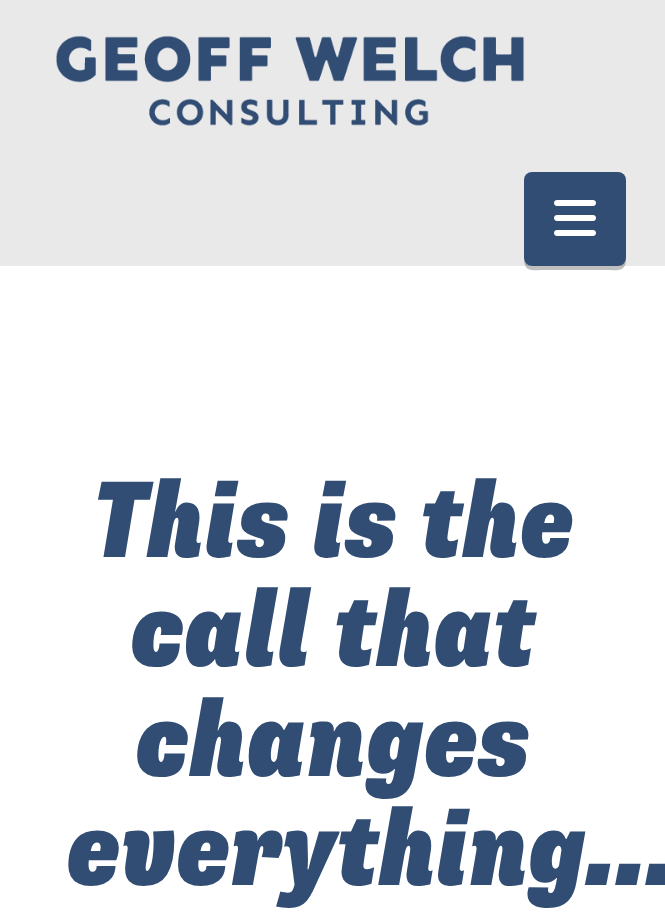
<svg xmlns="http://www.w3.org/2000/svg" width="665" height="921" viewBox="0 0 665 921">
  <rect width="100%" height="100%" fill="#ffffff"/>
  <rect x="0" y="0" width="665" height="266" fill="#e9e9ea"/>
  <image x="56" y="35" width="469" height="91" href="img1.png"/>
  <path d="M524 258C524 273 532 270 546 270H604C618 270 626 273 626 258C626 262 622 266 618 266H532C528 266 524 262 524 258Z" fill="#000000" fill-opacity="0.25"/>
  <rect x="524" y="172" width="102" height="94" rx="8" fill="#314d74"/>
  <image x="554" y="200" width="42" height="36" href="img2.png"/>
  <text x="92" y="557" font-family="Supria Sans" font-size="109.25" font-weight="900" font-style="italic" fill="#314d74">This is the</text>
  <text x="131" y="666" font-family="Supria Sans" font-size="109.25" font-weight="900" font-style="italic" fill="#314d74">call that</text>
  <text x="136" y="776" font-family="Supria Sans" font-size="109.25" font-weight="900" font-style="italic" fill="#314d74">changes</text>
  <text x="67" y="885" font-family="Supria Sans" font-size="109.25" font-weight="900" font-style="italic" fill="#314d74">everything...</text>
</svg>
